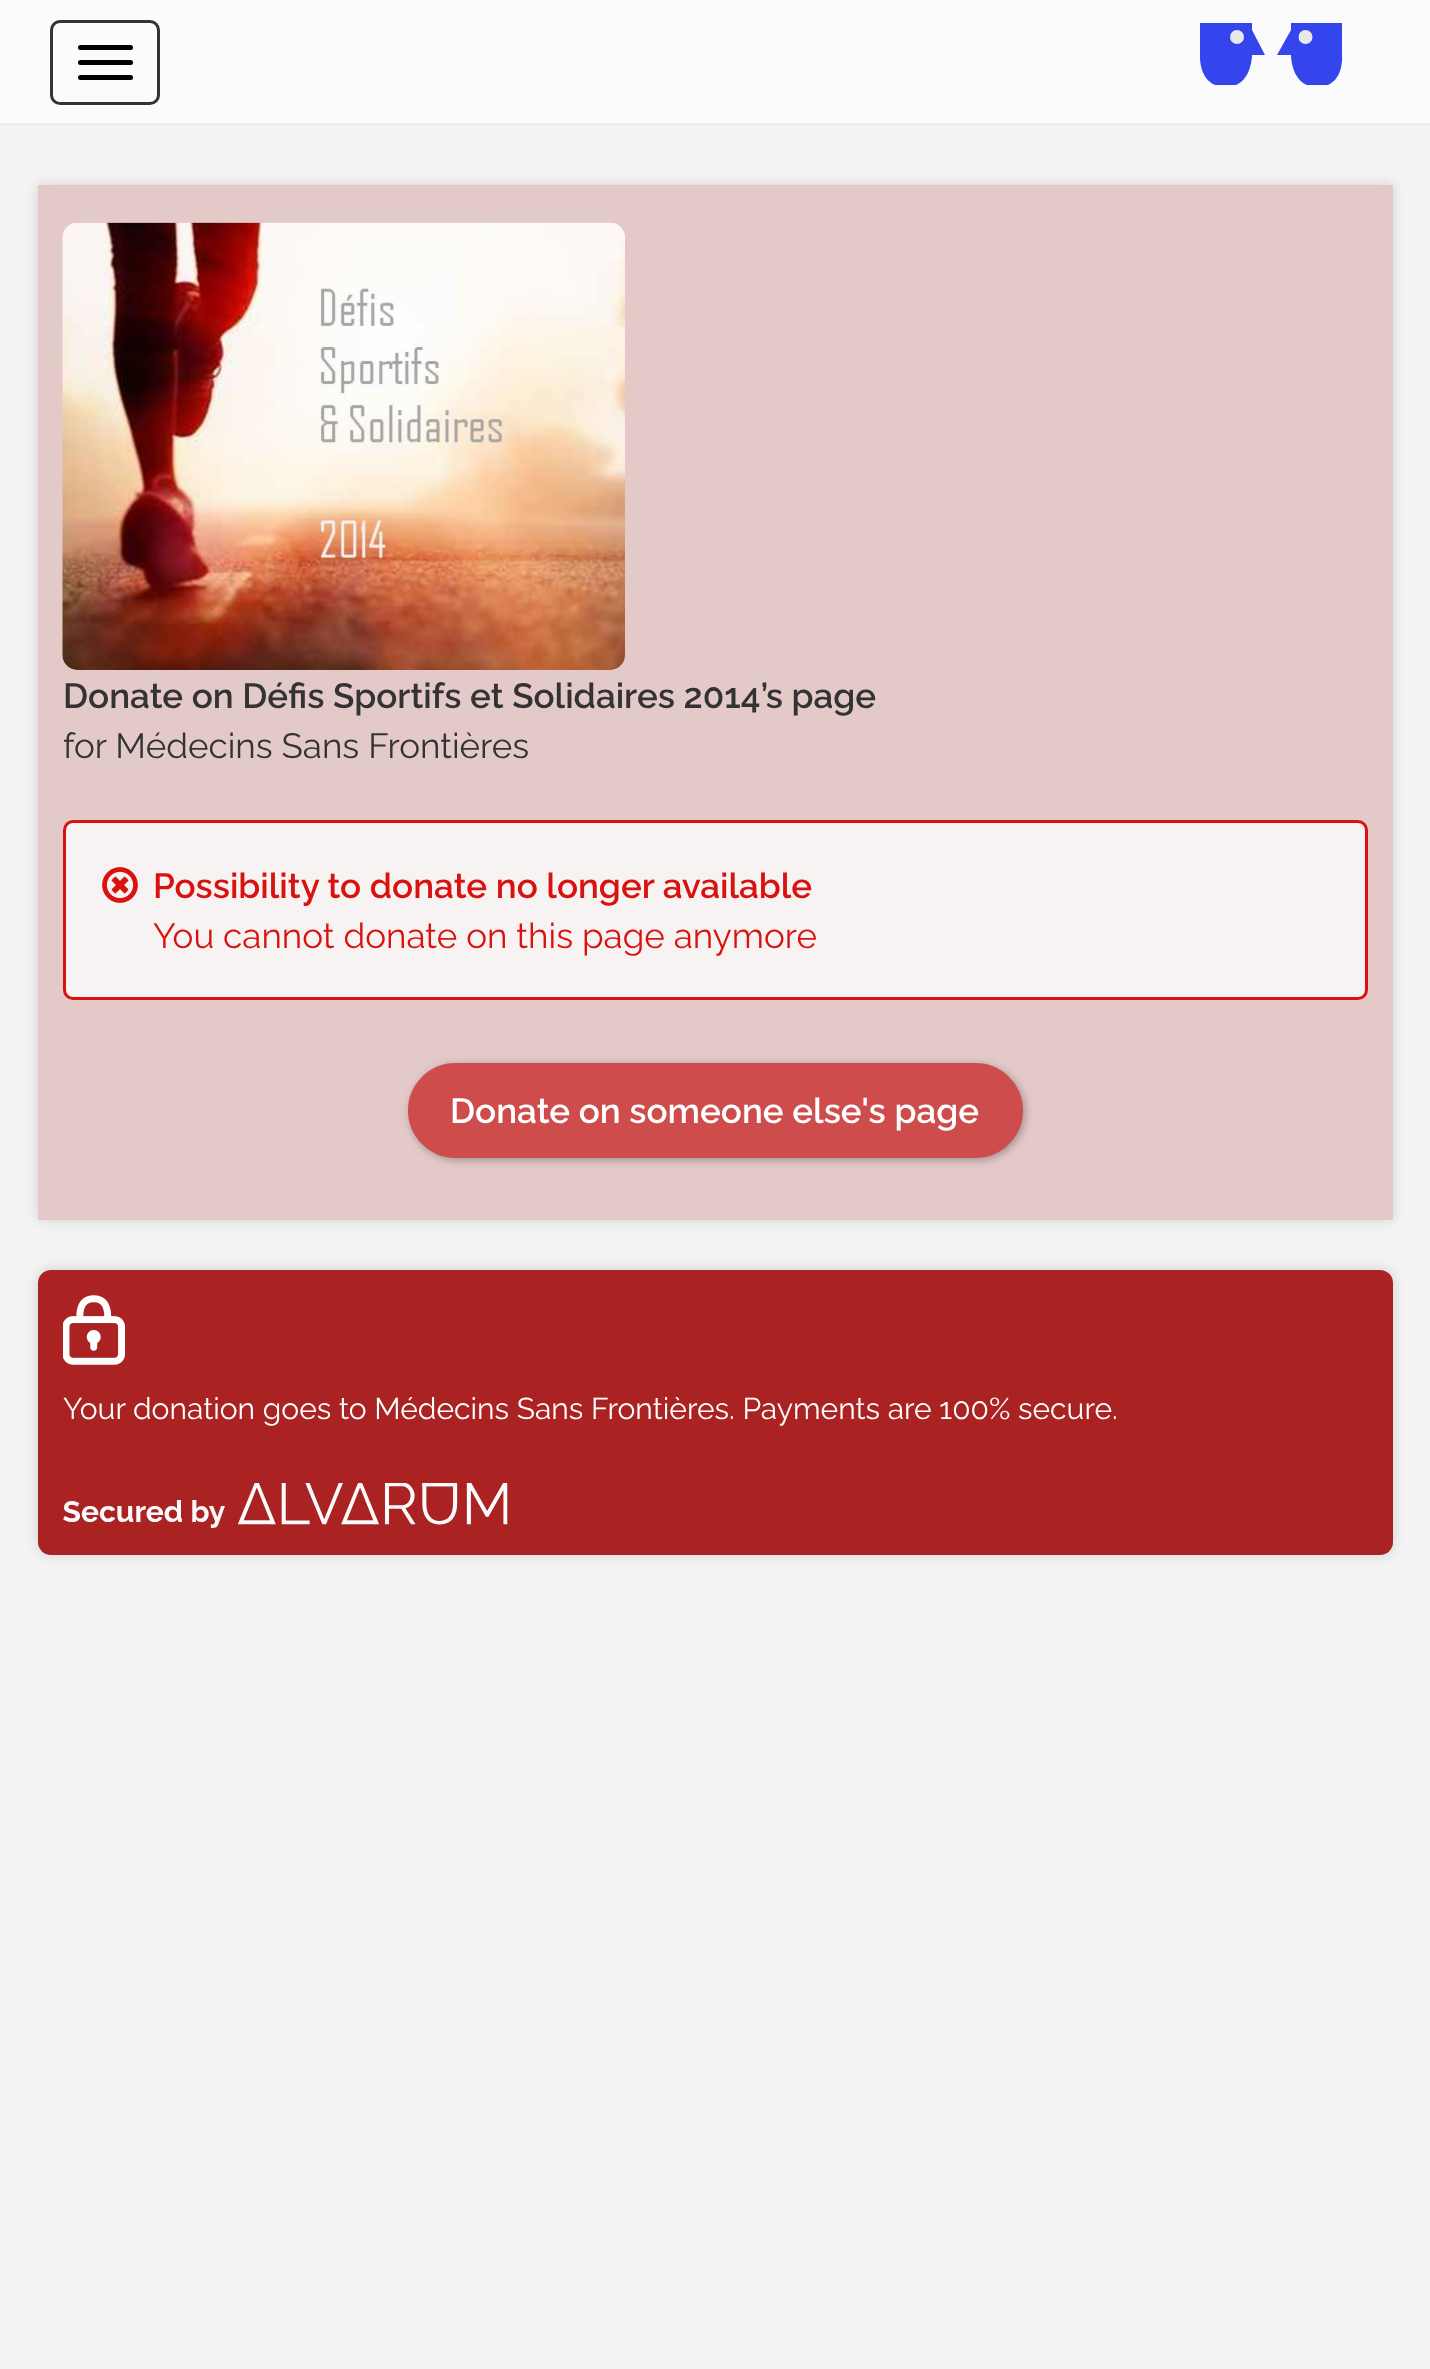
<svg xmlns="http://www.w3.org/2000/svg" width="1430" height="2369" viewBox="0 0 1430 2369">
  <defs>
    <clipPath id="clip1"><rect x="1200" y="23" width="143" height="62"/></clipPath>
    <clipPath id="clip2"><path d="M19 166H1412V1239H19ZM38 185H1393V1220H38Z" clip-rule="evenodd"/></clipPath>
    <filter id="blur1" x="-50%" y="-200%" width="200%" height="500%"><feGaussianBlur stdDeviation="6"/></filter>
    <filter id="blur2" x="-50%" y="-200%" width="200%" height="500%"><feGaussianBlur stdDeviation="4"/></filter>
  </defs>
  <rect width="100%" height="100%" fill="#f3f3f3"/>
  <rect x="0" y="0" width="1430" height="123" fill="#fbfbfd"/>
  <rect x="0" y="123" width="1430" height="3" fill="#eeedf2"/>
  <rect x="51.5" y="21.5" width="107" height="82" rx="8.5" fill="none" stroke="#333333" stroke-width="3"/>
  <rect x="78" y="45" width="55" height="5" rx="2.5" fill="#000000"/>
  <rect x="78" y="60" width="55" height="5" rx="2.5" fill="#000000"/>
  <rect x="78" y="75" width="55" height="5" rx="2.5" fill="#000000"/>
  <g clip-path="url(#clip1)">
    <path d="M1200 23V55C1200 55 1198 87 1226 87C1252 87 1252 55 1252 55H1265L1252 30V23Z" fill="#3545ee"/>
    <path d="M1342 23V55C1342 55 1345 87 1317 87C1291 87 1291 55 1291 55H1277L1291 30V23Z" fill="#3545ee"/>
  </g>
  <circle cx="1237" cy="37" r="7" fill="#e9e9e9"/>
  <circle cx="1305.5" cy="37" r="7" fill="#e9e9e9"/>
  <g clip-path="url(#clip2)">
    <rect x="38" y="185" width="1355" height="1035" fill="#000000" fill-opacity="0.15" filter="url(#blur1)"/>
  </g>
  <rect x="38" y="185" width="1355" height="1035" fill="#aa2222" fill-opacity="0.2"/>
  <image x="62" y="222" width="563" height="448" href="img1.png"/>
  <text x="63" y="708" font-family="Raleway" font-size="35" font-weight="600" fill="#333333">Donate on Défis Sportifs et Solidaires 2014’s page</text>
  <text x="63" y="758" font-family="Raleway" font-size="35" fill="#333333">for Médecins Sans Frontières</text>
  <rect x="64.5" y="821.5" width="1302" height="177" rx="8.5" fill="#f7f3f3" stroke="#d9120f" stroke-width="3"/>
  <image x="102" y="867" width="36" height="36" href="img2.png"/>
  <text x="153" y="898" font-family="Raleway" font-size="35" font-weight="600" fill="#d9120f">Possibility to donate no longer available</text>
  <text x="153" y="948" font-family="Raleway" font-size="35" fill="#d9120f">You cannot donate on this page anymore</text>
  <rect x="410" y="1065" width="615" height="95" rx="47.5" fill="#000000" fill-opacity="0.3" filter="url(#blur2)"/>
  <rect x="409.5" y="1064.5" width="612" height="92" rx="46" fill="#ce4c4c" stroke="#ce4c4c" stroke-width="3"/>
  <text x="450" y="1123" font-family="Raleway" font-size="35" font-weight="600" fill="#ffffff">Donate on someone else's page</text>
  <rect x="38" y="1270" width="1355" height="285" rx="13" fill="#000000" fill-opacity="0.15" filter="url(#blur1)"/>
  <rect x="38" y="1270" width="1355" height="285" rx="13" fill="#aa2222"/>
  <image x="63" y="1295" width="62" height="70" href="img3.png"/>
  <text x="63" y="1419" font-family="Raleway" font-size="30" fill="#ffffff">Your donation goes to Médecins Sans Frontières. Payments are 100% secure.</text>
  <image x="63" y="1483" width="445" height="45" href="img4.png"/>
</svg>
